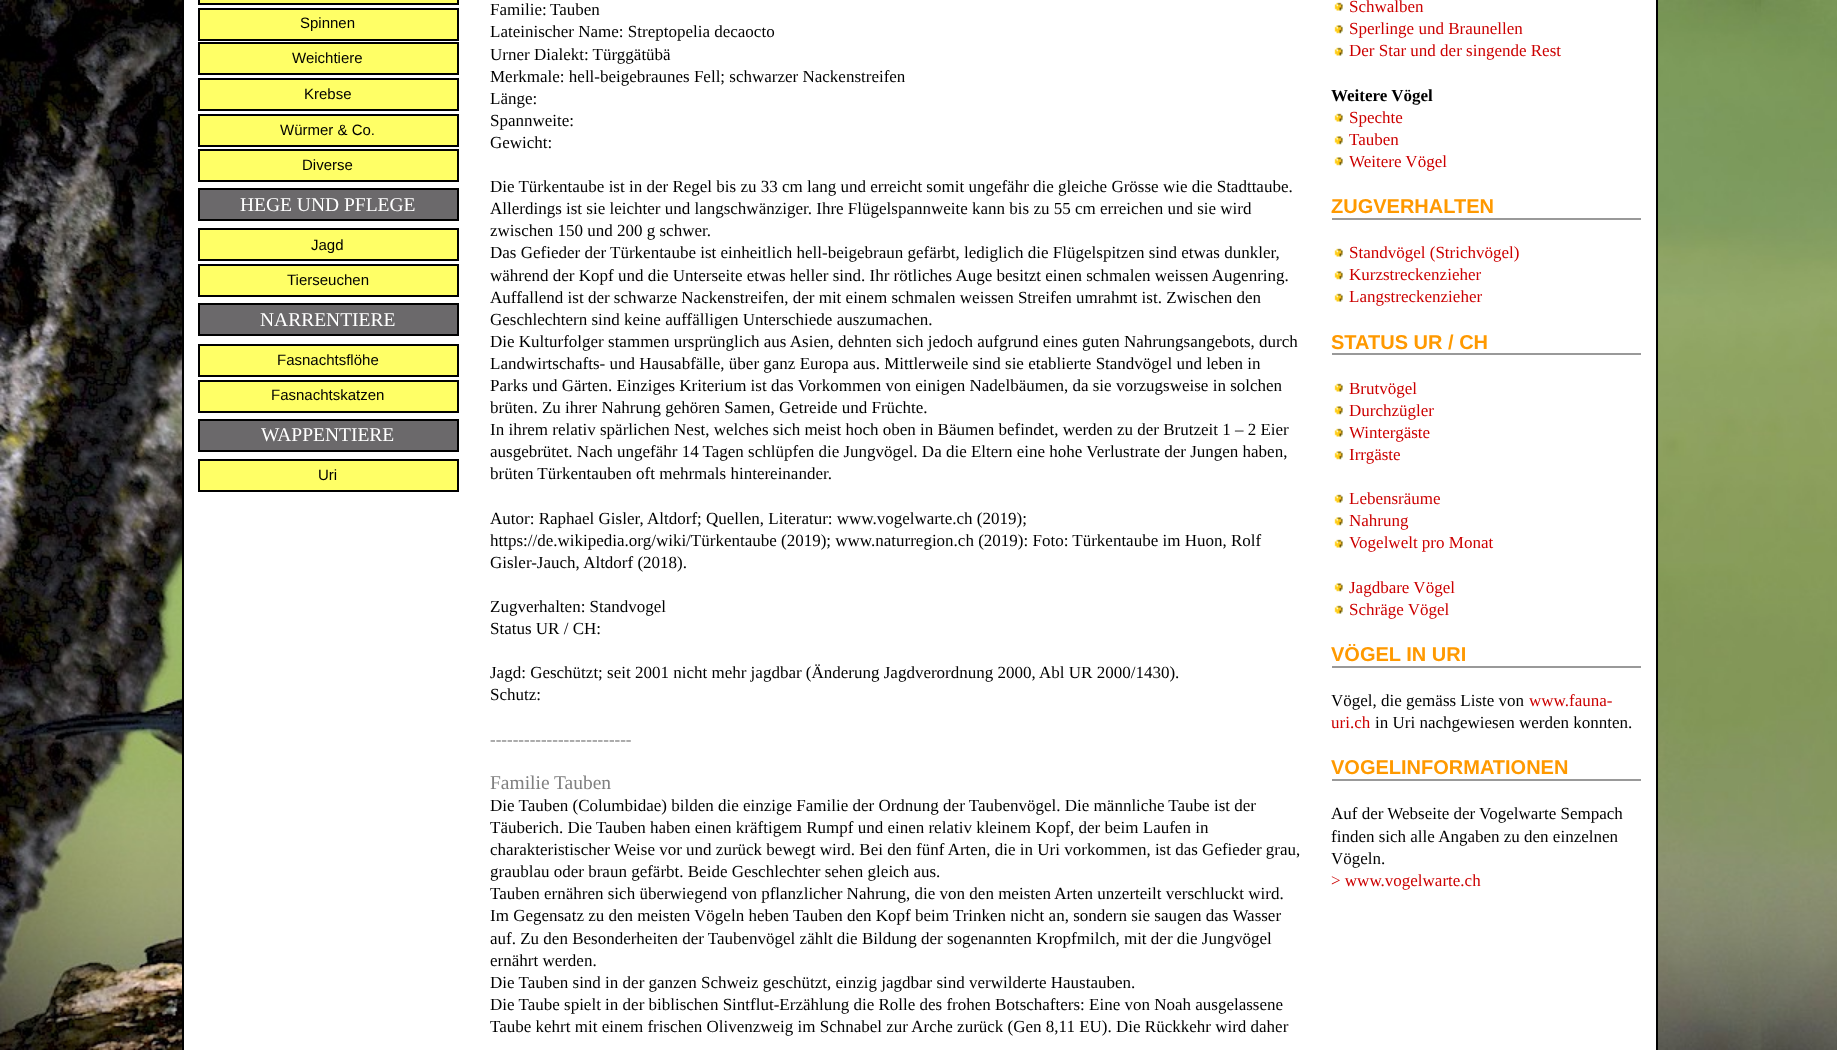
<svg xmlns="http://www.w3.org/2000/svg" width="1837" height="1050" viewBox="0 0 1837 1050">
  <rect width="100%" height="100%" fill="#ffffff"/>
  <image x="0" y="0" width="1837" height="1050" href="img1.png"/>
  <rect x="184" y="0" width="1472" height="1050" fill="#ffffff"/>
  <rect x="182" y="0" width="2" height="1050" fill="#000000"/>
  <rect x="199" y="-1" width="259" height="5" fill="#ffff66" stroke="#000000" stroke-width="2"/>
  <rect x="199" y="9" width="259" height="31" fill="#ffff66" stroke="#000000" stroke-width="2"/>
  <text x="300" y="28" font-family="Liberation Sans" font-size="15" fill="#000000">Spinnen</text>
  <rect x="199" y="43" width="259" height="31" fill="#ffff66" stroke="#000000" stroke-width="2"/>
  <text x="292" y="63" font-family="Liberation Sans" font-size="15" fill="#000000">Weichtiere</text>
  <rect x="199" y="79" width="259" height="31" fill="#ffff66" stroke="#000000" stroke-width="2"/>
  <text x="304" y="99" font-family="Liberation Sans" font-size="15" fill="#000000">Krebse</text>
  <rect x="199" y="115" width="259" height="31" fill="#ffff66" stroke="#000000" stroke-width="2"/>
  <text x="280" y="135" font-family="Liberation Sans" font-size="15" fill="#000000">Würmer &amp; Co.</text>
  <rect x="199" y="150" width="259" height="31" fill="#ffff66" stroke="#000000" stroke-width="2"/>
  <text x="302" y="170" font-family="Liberation Sans" font-size="15" fill="#000000">Diverse</text>
  <rect x="199" y="189" width="259" height="31" fill="#6b696b" stroke="#000000" stroke-width="2"/>
  <text x="240" y="211" font-family="Liberation Serif" font-size="19.5" fill="#ffffff">HEGE UND PFLEGE</text>
  <rect x="199" y="229" width="259" height="31" fill="#ffff66" stroke="#000000" stroke-width="2"/>
  <text x="311" y="250" font-family="Liberation Sans" font-size="15" fill="#000000">Jagd</text>
  <rect x="199" y="265" width="259" height="31" fill="#ffff66" stroke="#000000" stroke-width="2"/>
  <text x="287" y="285" font-family="Liberation Sans" font-size="15" fill="#000000">Tierseuchen</text>
  <rect x="199" y="304" width="259" height="31" fill="#6b696b" stroke="#000000" stroke-width="2"/>
  <text x="260" y="326" font-family="Liberation Serif" font-size="19.5" fill="#ffffff">NARRENTIERE</text>
  <rect x="199" y="345" width="259" height="31" fill="#ffff66" stroke="#000000" stroke-width="2"/>
  <text x="277" y="365" font-family="Liberation Sans" font-size="15" fill="#000000">Fasnachtsflöhe</text>
  <rect x="199" y="381" width="259" height="31" fill="#ffff66" stroke="#000000" stroke-width="2"/>
  <text x="271" y="400" font-family="Liberation Sans" font-size="15" fill="#000000">Fasnachtskatzen</text>
  <rect x="199" y="420" width="259" height="31" fill="#6b696b" stroke="#000000" stroke-width="2"/>
  <text x="261" y="441" font-family="Liberation Serif" font-size="19.5" fill="#ffffff">WAPPENTIERE</text>
  <rect x="199" y="460" width="259" height="31" fill="#ffff66" stroke="#000000" stroke-width="2"/>
  <text x="318" y="480" font-family="Liberation Sans" font-size="15" fill="#000000">Uri</text>
  <text x="490" y="15" font-family="Liberation Serif" font-size="17" fill="#000000">Familie:</text>
  <text x="550" y="15" font-family="Liberation Serif" font-size="17" fill="#000000">Tauben</text>
  <text x="490" y="37" font-family="Liberation Serif" font-size="17" fill="#000000">Lateinischer Name: Streptopelia decaocto</text>
  <text x="490" y="60" font-family="Liberation Serif" font-size="17" fill="#000000">Urner Dialekt: Türggätübä</text>
  <text x="490" y="82" font-family="Liberation Serif" font-size="17" fill="#000000">Merkmale: hell-beigebraunes Fell; schwarzer Nackenstreifen</text>
  <text x="490" y="104" font-family="Liberation Serif" font-size="17" fill="#000000">Länge:</text>
  <text x="490" y="126" font-family="Liberation Serif" font-size="17" fill="#000000">Spannweite:</text>
  <text x="490" y="148" font-family="Liberation Serif" font-size="17" fill="#000000">Gewicht:</text>
  <text x="490" y="192" font-family="Liberation Serif" font-size="17" fill="#000000">Die Türkentaube ist in der Regel bis zu 33 cm lang und erreicht somit ungefähr die gleiche Grösse wie die Stadttaube.</text>
  <text x="490" y="214" font-family="Liberation Serif" font-size="17" fill="#000000">Allerdings ist sie leichter und langschwänziger. Ihre Flügelspannweite kann bis zu 55 cm erreichen und sie wird</text>
  <text x="490" y="236" font-family="Liberation Serif" font-size="17" fill="#000000">zwischen 150 und 200 g schwer.</text>
  <text x="490" y="258" font-family="Liberation Serif" font-size="17" fill="#000000">Das Gefieder der Türkentaube ist einheitlich hell-beigebraun gefärbt, lediglich die Flügelspitzen sind etwas dunkler,</text>
  <text x="490" y="281" font-family="Liberation Serif" font-size="17" fill="#000000">während der Kopf und die Unterseite etwas heller sind. Ihr rötliches Auge besitzt einen schmalen weissen Augenring.</text>
  <text x="490" y="303" font-family="Liberation Serif" font-size="17" fill="#000000">Auffallend ist der schwarze Nackenstreifen, der mit einem schmalen weissen Streifen umrahmt ist. Zwischen den</text>
  <text x="490" y="325" font-family="Liberation Serif" font-size="17" fill="#000000">Geschlechtern sind keine auffälligen Unterschiede auszumachen.</text>
  <text x="490" y="347" font-family="Liberation Serif" font-size="17" fill="#000000">Die Kulturfolger stammen ursprünglich aus Asien, dehnten sich jedoch aufgrund eines guten Nahrungsangebots, durch</text>
  <text x="490" y="369" font-family="Liberation Serif" font-size="17" fill="#000000">Landwirtschafts- und Hausabfälle, über ganz Europa aus. Mittlerweile sind sie etablierte Standvögel und leben in</text>
  <text x="490" y="391" font-family="Liberation Serif" font-size="17" fill="#000000">Parks und Gärten. Einziges Kriterium ist das Vorkommen von einigen Nadelbäumen, da sie vorzugsweise in solchen</text>
  <text x="490" y="413" font-family="Liberation Serif" font-size="17" fill="#000000">brüten. Zu ihrer Nahrung gehören Samen, Getreide und Früchte.</text>
  <text x="490" y="435" font-family="Liberation Serif" font-size="17" fill="#000000">In ihrem relativ spärlichen Nest, welches sich meist hoch oben in Bäumen befindet, werden zu der Brutzeit 1 – 2 Eier</text>
  <text x="490" y="457" font-family="Liberation Serif" font-size="17" fill="#000000">ausgebrütet. Nach ungefähr 14 Tagen schlüpfen die Jungvögel. Da die Eltern eine hohe Verlustrate der Jungen haben,</text>
  <text x="490" y="479" font-family="Liberation Serif" font-size="17" fill="#000000">brüten Türkentauben oft mehrmals hintereinander.</text>
  <text x="490" y="524" font-family="Liberation Serif" font-size="17" fill="#000000">Autor: Raphael Gisler, Altdorf; Quellen, Literatur: www.vogelwarte.ch (2019);</text>
  <text x="490" y="546" font-family="Liberation Serif" font-size="17" fill="#000000">https://de.wikipedia.org/wiki/Türkentaube (2019); www.naturregion.ch (2019): Foto: Türkentaube im Huon, Rolf</text>
  <text x="490" y="568" font-family="Liberation Serif" font-size="17" fill="#000000">Gisler-Jauch, Altdorf (2018).</text>
  <text x="490" y="612" font-family="Liberation Serif" font-size="17" fill="#000000">Zugverhalten: Standvogel</text>
  <text x="490" y="634" font-family="Liberation Serif" font-size="17" fill="#000000">Status UR / CH:</text>
  <text x="490" y="678" font-family="Liberation Serif" font-size="17" fill="#000000">Jagd: Geschützt; seit 2001 nicht mehr jagdbar (Änderung Jagdverordnung 2000, Abl UR 2000/1430).</text>
  <text x="490" y="700" font-family="Liberation Serif" font-size="17" fill="#000000">Schutz:</text>
  <text x="490" y="745" font-family="Liberation Serif" font-size="17" fill="#808080">-------------------------</text>
  <text x="490" y="789" font-family="Liberation Serif" font-size="19.5" fill="#808080">Familie</text>
  <text x="554" y="789" font-family="Liberation Serif" font-size="19.5" fill="#808080">Tauben</text>
  <text x="490" y="811" font-family="Liberation Serif" font-size="17" fill="#000000">Die Tauben (Columbidae) bilden die einzige Familie der Ordnung der Taubenvögel. Die männliche Taube ist der</text>
  <text x="490" y="833" font-family="Liberation Serif" font-size="17" fill="#000000">Täuberich. Die Tauben haben einen kräftigem Rumpf und einen relativ kleinem Kopf, der beim Laufen in</text>
  <text x="490" y="855" font-family="Liberation Serif" font-size="17" fill="#000000">charakteristischer Weise vor und zurück bewegt wird. Bei den fünf Arten, die in Uri vorkommen, ist das Gefieder grau,</text>
  <text x="490" y="877" font-family="Liberation Serif" font-size="17" fill="#000000">graublau oder braun gefärbt. Beide Geschlechter sehen gleich aus.</text>
  <text x="490" y="899" font-family="Liberation Serif" font-size="17" fill="#000000">Tauben ernähren sich überwiegend von pflanzlicher Nahrung, die von den meisten Arten unzerteilt verschluckt wird.</text>
  <text x="490" y="921" font-family="Liberation Serif" font-size="17" fill="#000000">Im Gegensatz zu den meisten Vögeln heben Tauben den Kopf beim Trinken nicht an, sondern sie saugen das Wasser</text>
  <text x="490" y="944" font-family="Liberation Serif" font-size="17" fill="#000000">auf. Zu den Besonderheiten der Taubenvögel zählt die Bildung der sogenannten Kropfmilch, mit der die Jungvögel</text>
  <text x="490" y="966" font-family="Liberation Serif" font-size="17" fill="#000000">ernährt werden.</text>
  <text x="490" y="988" font-family="Liberation Serif" font-size="17" fill="#000000">Die Tauben sind in der ganzen Schweiz geschützt, einzig jagdbar sind verwilderte Haustauben.</text>
  <text x="490" y="1010" font-family="Liberation Serif" font-size="17" fill="#000000">Die Taube spielt in der biblischen Sintflut-Erzählung die Rolle des frohen Botschafters: Eine von Noah ausgelassene</text>
  <text x="490" y="1032" font-family="Liberation Serif" font-size="17" fill="#000000">Taube kehrt mit einem frischen Olivenzweig im Schnabel zur Arche zurück (Gen 8,11 EU). Die Rückkehr wird daher</text>
  <rect x="1656" y="0" width="2" height="1050" fill="#000000"/>
  <image x="1334" y="2" width="9" height="9" href="img2.png"/>
  <text x="1349" y="12" font-family="Liberation Serif" font-size="17" fill="#cc0000">Schwalben</text>
  <image x="1334" y="25" width="9" height="9" href="img3.png"/>
  <text x="1349" y="34" font-family="Liberation Serif" font-size="17" fill="#cc0000">Sperlinge und Braunellen</text>
  <image x="1334" y="47" width="9" height="9" href="img2.png"/>
  <text x="1349" y="56" font-family="Liberation Serif" font-size="17" fill="#cc0000">Der Star und der singende Rest</text>
  <text x="1331" y="101" font-family="Liberation Serif" font-size="17" font-weight="bold" fill="#000000">Weitere Vögel</text>
  <image x="1334" y="113" width="9" height="9" href="img2.png"/>
  <text x="1349" y="123" font-family="Liberation Serif" font-size="17" fill="#cc0000">Spechte</text>
  <image x="1334" y="136" width="9" height="9" href="img3.png"/>
  <text x="1349" y="145" font-family="Liberation Serif" font-size="17" fill="#cc0000">Tauben</text>
  <image x="1334" y="157" width="9" height="9" href="img3.png"/>
  <text x="1349" y="167" font-family="Liberation Serif" font-size="17" fill="#cc0000">Weitere Vögel</text>
  <rect x="1332" y="218" width="309" height="2" fill="#999999"/>
  <text x="1331" y="213" font-family="Liberation Sans" font-size="20" font-weight="bold" fill="#ff9900">ZUGVERHALTEN</text>
  <image x="1334" y="248" width="9" height="9" href="img2.png"/>
  <text x="1349" y="258" font-family="Liberation Serif" font-size="17" fill="#cc0000">Standvögel (Strichvögel)</text>
  <image x="1334" y="271" width="9" height="9" href="img3.png"/>
  <text x="1349" y="280" font-family="Liberation Serif" font-size="17" fill="#cc0000">Kurzstreckenzieher</text>
  <image x="1334" y="293" width="9" height="9" href="img2.png"/>
  <text x="1349" y="302" font-family="Liberation Serif" font-size="17" fill="#cc0000">Langstreckenzieher</text>
  <rect x="1332" y="353" width="309" height="2" fill="#999999"/>
  <text x="1331" y="349" font-family="Liberation Sans" font-size="20" font-weight="bold" fill="#ff9900">STATUS UR / CH</text>
  <image x="1334" y="383" width="9" height="9" href="img2.png"/>
  <text x="1349" y="394" font-family="Liberation Serif" font-size="17" fill="#cc0000">Brutvögel</text>
  <image x="1334" y="406" width="9" height="9" href="img3.png"/>
  <text x="1349" y="416" font-family="Liberation Serif" font-size="17" fill="#cc0000">Durchzügler</text>
  <image x="1334" y="428" width="9" height="9" href="img2.png"/>
  <text x="1349" y="438" font-family="Liberation Serif" font-size="17" fill="#cc0000">Wintergäste</text>
  <image x="1334" y="451" width="9" height="9" href="img3.png"/>
  <text x="1349" y="460" font-family="Liberation Serif" font-size="17" fill="#cc0000">Irrgäste</text>
  <image x="1334" y="494" width="9" height="9" href="img2.png"/>
  <text x="1349" y="504" font-family="Liberation Serif" font-size="17" fill="#cc0000">Lebensräume</text>
  <image x="1334" y="517" width="9" height="9" href="img3.png"/>
  <text x="1349" y="526" font-family="Liberation Serif" font-size="17" fill="#cc0000">Nahrung</text>
  <image x="1334" y="539" width="9" height="9" href="img2.png"/>
  <text x="1349" y="548" font-family="Liberation Serif" font-size="17" fill="#cc0000">Vogelwelt pro Monat</text>
  <image x="1334" y="583" width="9" height="9" href="img3.png"/>
  <text x="1349" y="593" font-family="Liberation Serif" font-size="17" fill="#cc0000">Jagdbare Vögel</text>
  <image x="1334" y="605" width="9" height="9" href="img2.png"/>
  <text x="1349" y="615" font-family="Liberation Serif" font-size="17" fill="#cc0000">Schräge Vögel</text>
  <rect x="1332" y="666" width="309" height="2" fill="#999999"/>
  <text x="1331" y="661" font-family="Liberation Sans" font-size="20" font-weight="bold" fill="#ff9900">VÖGEL IN URI</text>
  <text x="1331" y="706" font-family="Liberation Serif" font-size="17" fill="#000000">Vögel, die gemäss Liste von</text>
  <text x="1529" y="706" font-family="Liberation Serif" font-size="17" fill="#cc0000">www.fauna-</text>
  <text x="1331" y="728" font-family="Liberation Serif" font-size="17" fill="#cc0000">uri.ch</text>
  <text x="1375" y="728" font-family="Liberation Serif" font-size="17" fill="#000000">in Uri nachgewiesen werden konnten.</text>
  <rect x="1332" y="779" width="309" height="2" fill="#999999"/>
  <text x="1331" y="774" font-family="Liberation Sans" font-size="20" font-weight="bold" fill="#ff9900">VOGELINFORMATIONEN</text>
  <text x="1331" y="819" font-family="Liberation Serif" font-size="17" fill="#000000">Auf der Webseite der Vogelwarte Sempach</text>
  <text x="1331" y="842" font-family="Liberation Serif" font-size="17" fill="#000000">finden sich alle Angaben zu den einzelnen</text>
  <text x="1331" y="864" font-family="Liberation Serif" font-size="17" fill="#000000">Vögeln.</text>
  <text x="1331" y="886" font-family="Liberation Serif" font-size="17" fill="#cc0000">&gt; www.vogelwarte.ch</text>
</svg>
